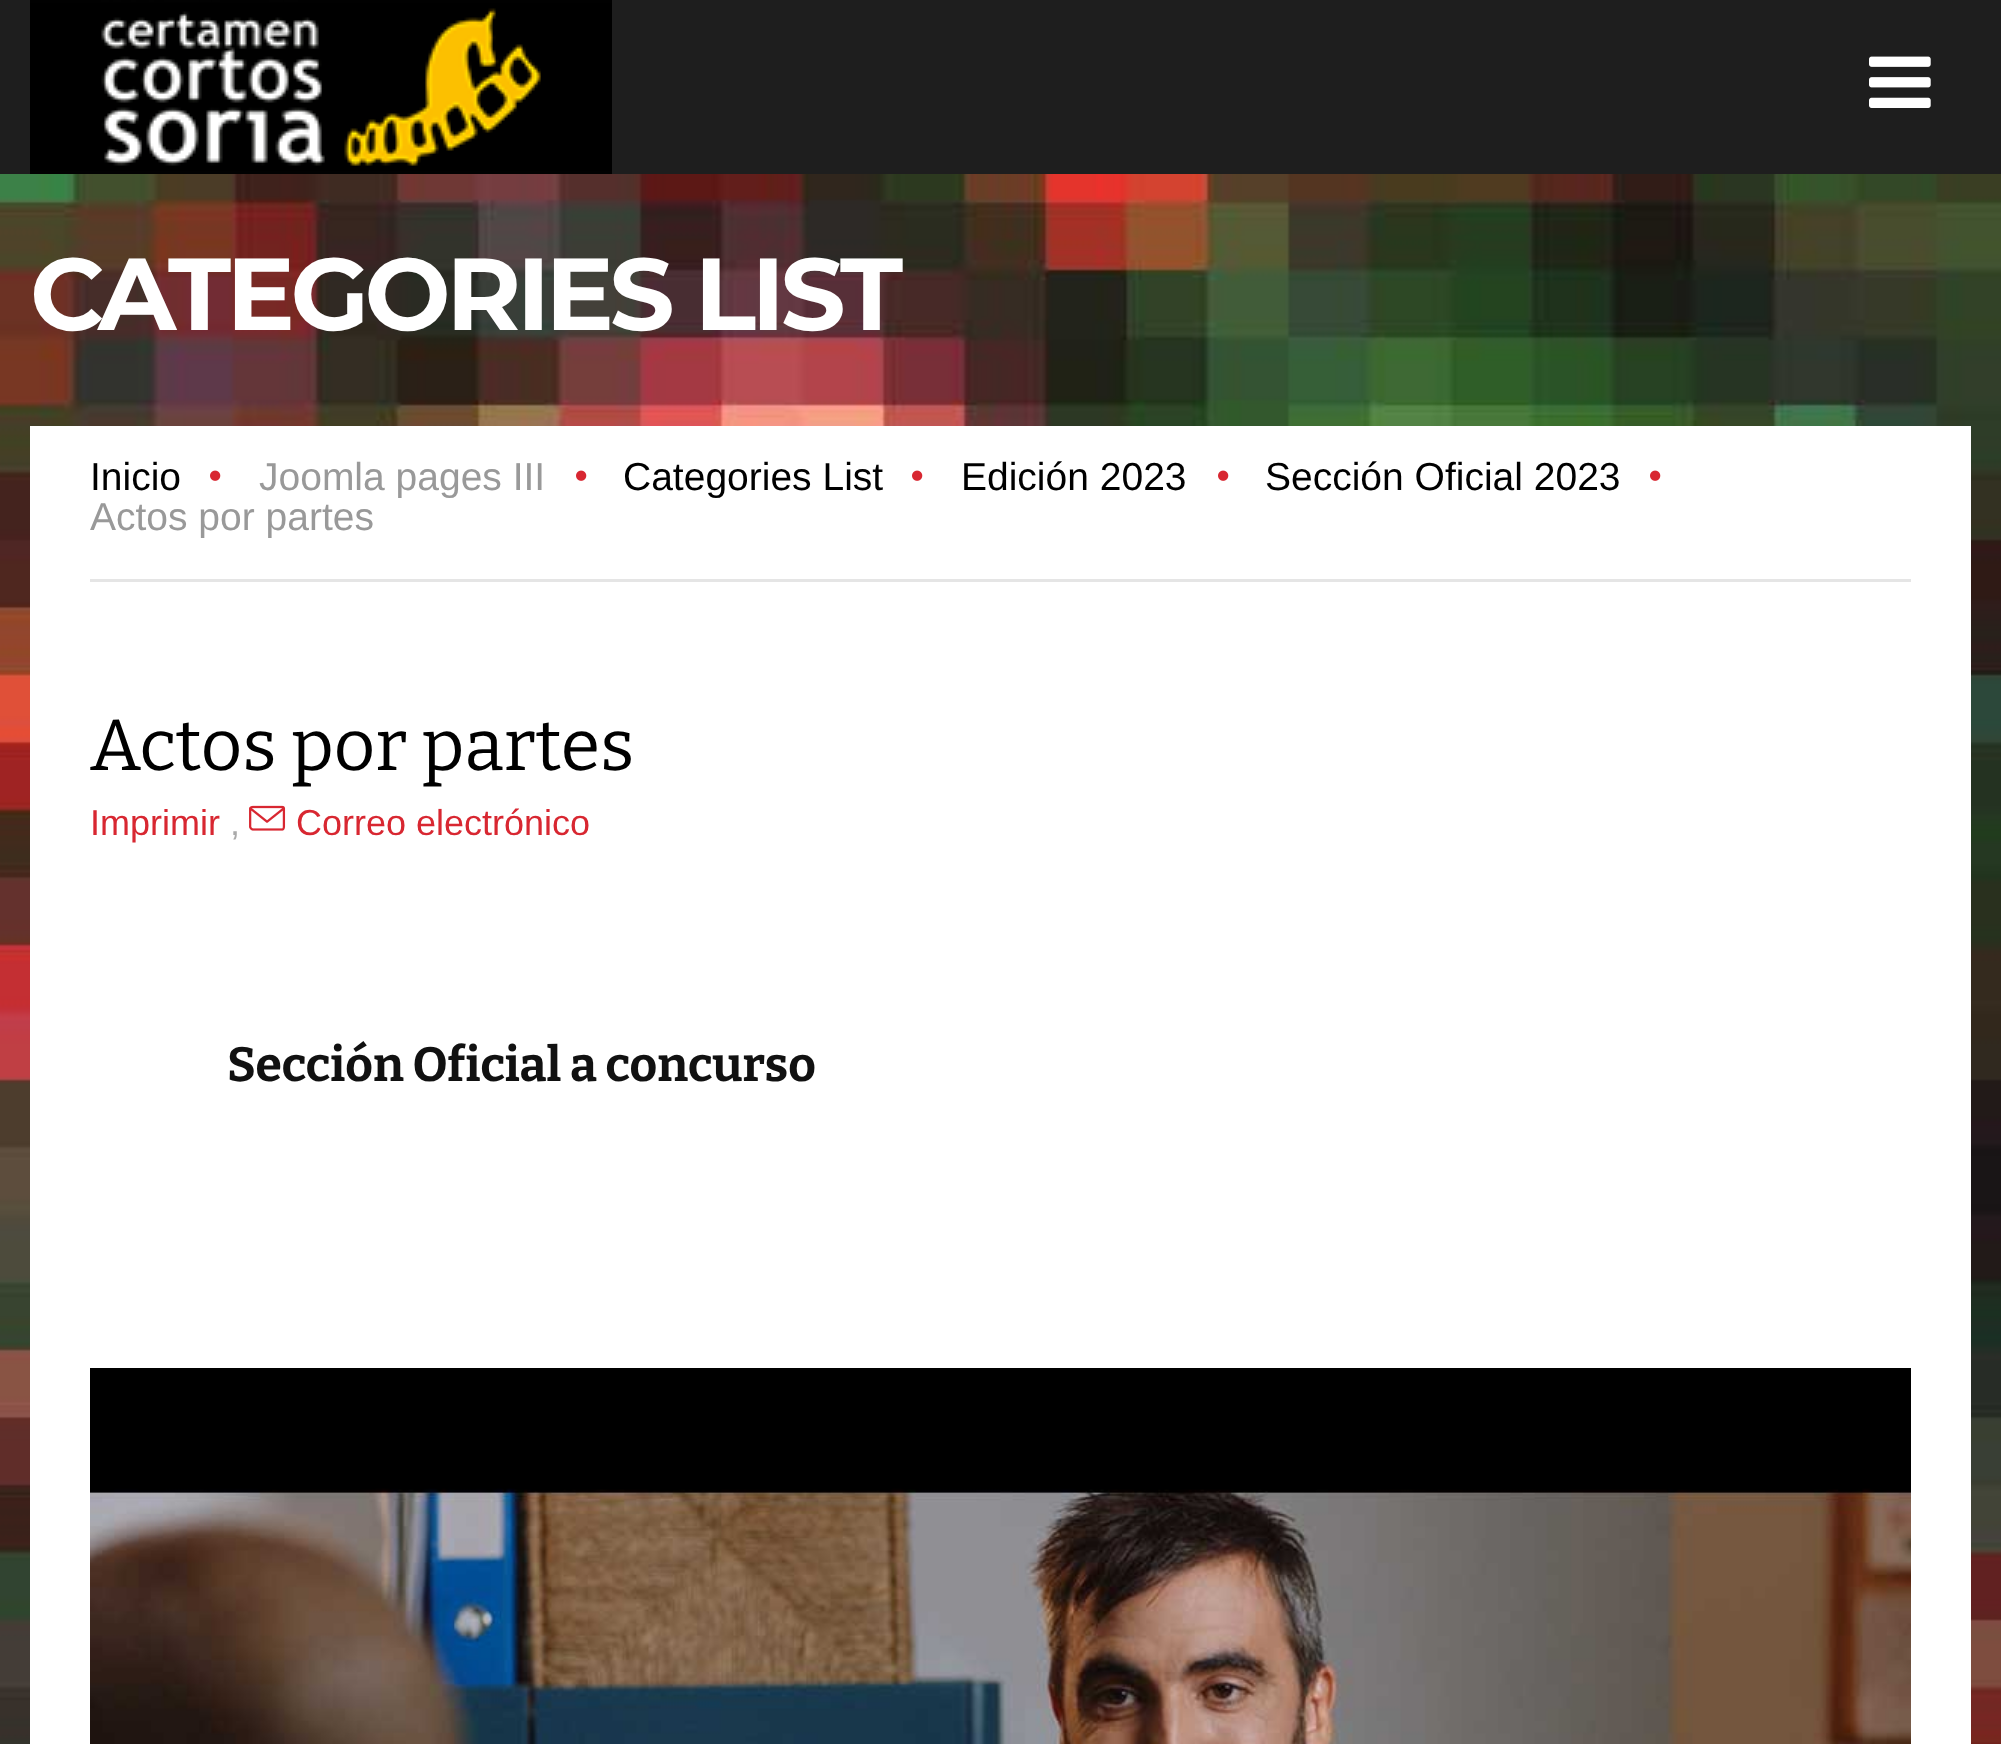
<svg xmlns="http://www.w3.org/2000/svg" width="2001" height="1744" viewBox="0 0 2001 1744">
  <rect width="100%" height="100%" fill="#ffffff"/>
  <rect x="0" y="0" width="2001" height="174" fill="#1e1e1e"/>
  <image x="30" y="0" width="582" height="174" href="img1.png"/>
  <image x="1869" y="56" width="62" height="52" href="img2.png"/>
  <image x="0" y="174" width="2001" height="1570" href="img3.png"/>
  <text x="30" y="330" font-family="Montserrat" font-size="102" font-weight="bold" letter-spacing="-4.5" fill="#ffffff">CATEGORIES LIST</text>
  <rect x="30" y="426" width="1941" height="1318" fill="#ffffff"/>
  <rect x="90" y="579" width="1821" height="3" fill="#e5e5e5"/>
  <text x="90" y="490" font-family="Liberation Sans" font-size="39" fill="#000000">Inicio</text>
  <image x="210" y="470" width="11" height="11" href="img4.png"/>
  <text x="259" y="490" font-family="Liberation Sans" font-size="39" fill="#999999">Joomla pages III</text>
  <image x="576" y="470" width="11" height="11" href="img4.png"/>
  <text x="623" y="490" font-family="Liberation Sans" font-size="39" fill="#000000">Categories List</text>
  <image x="912" y="470" width="11" height="11" href="img4.png"/>
  <text x="961" y="490" font-family="Liberation Sans" font-size="39" fill="#000000">Edición 2023</text>
  <image x="1218" y="470" width="11" height="11" href="img4.png"/>
  <text x="1265" y="490" font-family="Liberation Sans" font-size="39" fill="#000000">Sección Oficial 2023</text>
  <image x="1650" y="470" width="11" height="11" href="img4.png"/>
  <text x="90" y="530" font-family="Liberation Sans" font-size="39" fill="#999999">Actos por partes</text>
  <text x="90" y="770" font-family="Bitter" font-size="72" fill="#000000">Actos por partes</text>
  <text x="90" y="835" font-family="Liberation Sans" font-size="36" fill="#d82731">Imprimir</text>
  <text x="230" y="835" font-family="Liberation Sans" font-size="36" fill="#aaaaaa">,</text>
  <image x="249" y="805" width="37" height="26" href="img5.png"/>
  <text x="296" y="835" font-family="Liberation Sans" font-size="36" fill="#d82731">Correo electrónico</text>
  <text x="227" y="1081" font-family="Bitter" font-size="48" font-weight="bold" fill="#111111">Sección Oficial a concurso</text>
  <image x="90" y="1368" width="1821" height="376" href="img6.png"/>
</svg>
